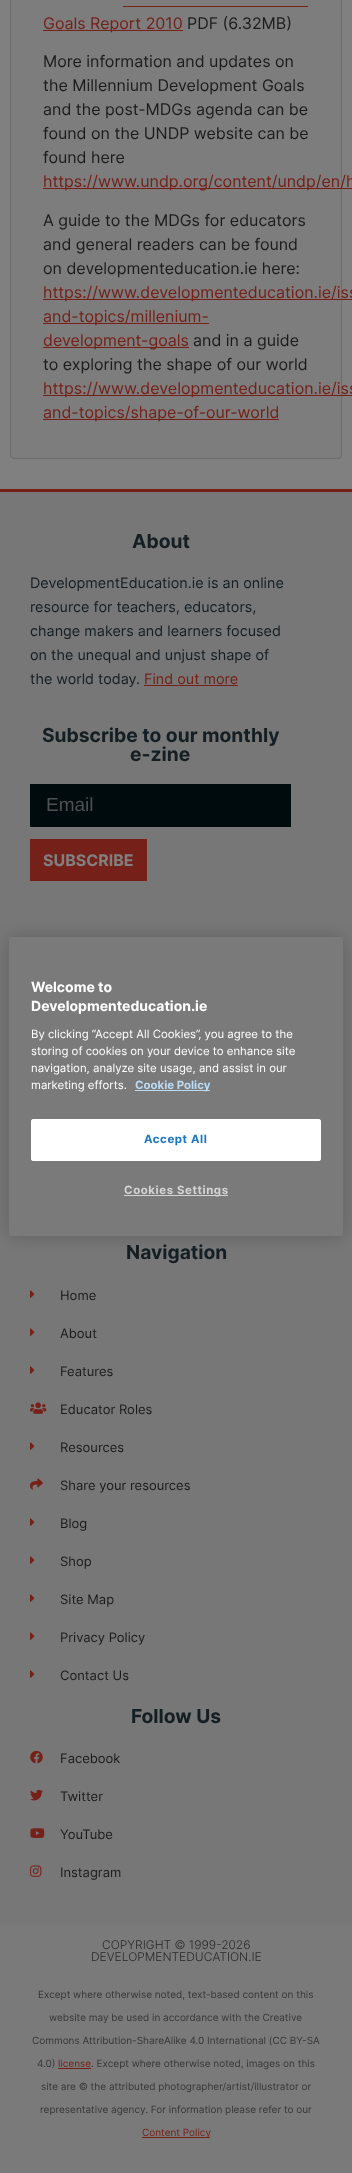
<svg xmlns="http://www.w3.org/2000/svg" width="352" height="2173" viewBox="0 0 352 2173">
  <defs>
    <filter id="blur1" x="-50%" y="-200%" width="200%" height="500%"><feGaussianBlur stdDeviation="9"/></filter>
  </defs>
  <rect width="100%" height="100%" fill="#808080"/>
  <rect x="10.5" y="-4.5" width="331" height="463" rx="3.5" fill="#7d7d7d" stroke="#6d6d6d"/>
  <rect x="43" y="30" width="140" height="1" fill="#752018"/>
  <text x="43" y="29" font-family="Inter" font-size="16" fill="#752018">Goals Report 2010</text>
  <rect x="123" y="6" width="185" height="1" fill="#752018"/>
  <text x="187" y="29" font-family="Inter" font-size="16" fill="#1c1c1c">PDF (6.32MB)</text>
  <text x="43" y="67" font-family="Inter" font-size="16" fill="#1c1c1c">More information and updates on</text>
  <text x="43" y="91" font-family="Inter" font-size="16" fill="#1c1c1c">the Millennium Development Goals</text>
  <text x="43" y="115" font-family="Inter" font-size="16" fill="#1c1c1c">and the post-MDGs agenda can be</text>
  <text x="43" y="139" font-family="Inter" font-size="16" fill="#1c1c1c">found on the UNDP website can be</text>
  <text x="43" y="163" font-family="Inter" font-size="16" fill="#1c1c1c">found here</text>
  <rect x="43" y="188" width="309" height="1" fill="#752018"/>
  <text x="43" y="187" font-family="Inter" font-size="16" fill="#752018">https://www.undp.org/content/undp/en/h</text>
  <text x="43" y="226" font-family="Inter" font-size="16" fill="#1c1c1c">A guide to the MDGs for educators</text>
  <text x="43" y="250" font-family="Inter" font-size="16" fill="#1c1c1c">and general readers can be found</text>
  <text x="43" y="274" font-family="Inter" font-size="16" fill="#1c1c1c">on developmenteducation.ie here:</text>
  <rect x="43" y="299" width="309" height="1" fill="#752018"/>
  <text x="43" y="298" font-family="Inter" font-size="16" fill="#752018">https://www.developmenteducation.ie/iss</text>
  <rect x="43" y="323" width="166" height="1" fill="#752018"/>
  <text x="43" y="322" font-family="Inter" font-size="16" fill="#752018">and-topics/millenium-</text>
  <rect x="43" y="347" width="146" height="1" fill="#752018"/>
  <text x="43" y="346" font-family="Inter" font-size="16" fill="#752018">development-goals</text>
  <text x="193" y="346" font-family="Inter" font-size="16" fill="#1c1c1c">and in a guide</text>
  <text x="43" y="370" font-family="Inter" font-size="16" fill="#1c1c1c">to exploring the shape of our world</text>
  <rect x="43" y="395" width="309" height="1" fill="#752018"/>
  <text x="43" y="394" font-family="Inter" font-size="16" fill="#752018">https://www.developmenteducation.ie/iss</text>
  <rect x="43" y="419" width="236" height="1" fill="#752018"/>
  <text x="43" y="418" font-family="Inter" font-size="16" fill="#752018">and-topics/shape-of-our-world</text>
  <rect x="0" y="492" width="352" height="1432" fill="#777777"/>
  <rect x="0" y="489" width="352" height="3" fill="#752018"/>
  <text x="132" y="548" font-family="Inter" font-size="19.25" font-weight="bold" fill="#141e23">About</text>
  <text x="30" y="588" font-family="Inter" font-size="14.4" fill="#141e23">DevelopmentEducation.ie is an online</text>
  <text x="30" y="612" font-family="Inter" font-size="14.4" fill="#141e23">resource for teachers, educators,</text>
  <text x="30" y="636" font-family="Inter" font-size="14.4" fill="#141e23">change makers and learners focused</text>
  <text x="30" y="660" font-family="Inter" font-size="14.4" fill="#141e23">on the unequal and unjust shape of</text>
  <text x="30" y="684" font-family="Inter" font-size="14.4" fill="#141e23">the world today.</text>
  <text x="144" y="684" font-family="Inter" font-size="14.4" fill="#752018">Find out more</text>
  <rect x="144" y="685" width="94" height="1" fill="#752018"/>
  <text x="42" y="742" font-family="Inter" font-size="19.25" font-weight="bold" fill="#141e23">Subscribe to our monthly</text>
  <text x="130" y="761" font-family="Inter" font-size="19.25" font-weight="bold" fill="#141e23">e-zine</text>
  <rect x="30" y="784" width="261" height="43" fill="#000b0e"/>
  <text x="46" y="811" font-family="Liberation Sans" font-size="19" fill="#4d5152">Email</text>
  <rect x="30" y="839" width="117" height="42" fill="#752018"/>
  <text x="43" y="866" font-family="Inter" font-size="16" font-weight="bold" fill="#808080">SUBSCRIBE</text>
  <text x="126" y="1259" font-family="Inter" font-size="19.25" font-weight="bold" fill="#141e23">Navigation</text>
  <image x="30" y="1290" width="5" height="8" href="img1.png"/>
  <text x="60" y="1300" font-family="Inter" font-size="13" fill="#1c1c1c">Home</text>
  <image x="30" y="1328" width="5" height="8" href="img1.png"/>
  <text x="60" y="1338" font-family="Inter" font-size="13" fill="#1c1c1c">About</text>
  <image x="30" y="1366" width="5" height="8" href="img1.png"/>
  <text x="60" y="1376" font-family="Inter" font-size="13" fill="#1c1c1c">Features</text>
  <image x="30" y="1402" width="17" height="12" href="img2.png"/>
  <text x="60" y="1414" font-family="Inter" font-size="13" fill="#1c1c1c">Educator Roles</text>
  <image x="30" y="1442" width="5" height="8" href="img1.png"/>
  <text x="60" y="1452" font-family="Inter" font-size="13" fill="#1c1c1c">Resources</text>
  <image x="30" y="1478" width="13" height="12" href="img3.png"/>
  <text x="60" y="1490" font-family="Inter" font-size="13" fill="#1c1c1c">Share your resources</text>
  <image x="30" y="1518" width="5" height="8" href="img1.png"/>
  <text x="60" y="1528" font-family="Inter" font-size="13" fill="#1c1c1c">Blog</text>
  <image x="30" y="1556" width="5" height="8" href="img1.png"/>
  <text x="60" y="1566" font-family="Inter" font-size="13" fill="#1c1c1c">Shop</text>
  <image x="30" y="1594" width="5" height="8" href="img1.png"/>
  <text x="60" y="1604" font-family="Inter" font-size="13" fill="#1c1c1c">Site Map</text>
  <image x="30" y="1632" width="5" height="8" href="img1.png"/>
  <text x="60" y="1642" font-family="Inter" font-size="13" fill="#1c1c1c">Privacy Policy</text>
  <image x="30" y="1670" width="5" height="8" href="img1.png"/>
  <text x="60" y="1680" font-family="Inter" font-size="13" fill="#1c1c1c">Contact Us</text>
  <text x="131" y="1723" font-family="Inter" font-size="19.25" font-weight="bold" fill="#141e23">Follow Us</text>
  <image x="30" y="1750" width="13" height="14" href="img4.png"/>
  <text x="60" y="1763" font-family="Inter" font-size="13" fill="#1c1c1c">Facebook</text>
  <image x="30" y="1789" width="13" height="12" href="img5.png"/>
  <text x="60" y="1801" font-family="Inter" font-size="13" fill="#1c1c1c">Twitter</text>
  <image x="30" y="1828" width="15" height="10" href="img6.png"/>
  <text x="60" y="1839" font-family="Inter" font-size="13" fill="#1c1c1c">YouTube</text>
  <image x="30" y="1865" width="12" height="12" href="img7.png"/>
  <text x="60" y="1877" font-family="Inter" font-size="13" fill="#1c1c1c">Instagram</text>
  <rect x="0" y="1924" width="352" height="249" fill="#7a7a7a"/>
  <text x="102" y="1949" font-family="Inter" font-size="12" font-weight="300" fill="#282828">COPYRIGHT © 1999-2026</text>
  <text x="91" y="1961" font-family="Inter" font-size="12" font-weight="300" fill="#282828">DEVELOPMENTEDUCATION.IE</text>
  <text x="38" y="1998" font-family="Inter" font-size="10" fill="#373737">Except where otherwise noted, text-based content on this</text>
  <text x="49" y="2021" font-family="Inter" font-size="10" fill="#373737">website may be used in accordance with the Creative</text>
  <text x="32" y="2044" font-family="Inter" font-size="10" fill="#373737">Commons Attribution-ShareAlike 4.0 International (CC BY-SA</text>
  <text x="37" y="2067" font-family="Inter" font-size="10" fill="#373737">4.0)</text>
  <text x="58" y="2067" font-family="Inter" font-size="10" fill="#752018">license</text>
  <rect x="58" y="2068" width="33" height="1" fill="#752018"/>
  <text x="91" y="2067" font-family="Inter" font-size="10" fill="#373737">. Except where otherwise noted, images on this</text>
  <text x="41" y="2090" font-family="Inter" font-size="10" fill="#373737">site are © the attributed photographer/artist/illustrator or</text>
  <text x="40" y="2113" font-family="Inter" font-size="10" fill="#373737">representative agency. For information please refer to our</text>
  <rect x="142" y="2137" width="68" height="1" fill="#752018"/>
  <text x="142" y="2136" font-family="Inter" font-size="10" fill="#752018">Content Policy</text>
  <rect x="9" y="937" width="334" height="299" rx="2.5" fill="#000000" fill-opacity="0.2" filter="url(#blur1)"/>
  <rect x="9" y="937" width="334" height="299" rx="2.5" fill="#7a7a7a"/>
  <text x="31" y="992" font-family="Inter" font-size="14" font-weight="bold" fill="#ffffff">Welcome to</text>
  <text x="31" y="1011" font-family="Inter" font-size="14" font-weight="bold" fill="#ffffff">Developmenteducation.ie</text>
  <text x="31" y="1038" font-family="Inter" font-size="11.4" fill="#ffffff">By clicking “Accept All Cookies”, you agree to the</text>
  <text x="31" y="1055" font-family="Inter" font-size="11.4" fill="#ffffff">storing of cookies on your device to enhance site</text>
  <text x="31" y="1072" font-family="Inter" font-size="11.4" fill="#ffffff">navigation, analyze site usage, and assist in our</text>
  <text x="31" y="1089" font-family="Inter" font-size="11.4" fill="#ffffff">marketing efforts.</text>
  <rect x="135" y="1090" width="75" height="1" fill="#bad9f2"/>
  <text x="135" y="1089" font-family="Inter" font-size="11.4" font-weight="bold" fill="#bad9f2">Cookie Policy</text>
  <rect x="31.5" y="1119.5" width="289" height="41" rx="1.5" fill="#ffffff" stroke="#ffffff"/>
  <text x="144" y="1143" font-family="Inter" font-size="11.4" font-weight="bold" letter-spacing="0.6" fill="#1c77c3">Accept All</text>
  <rect x="124" y="1195" width="104" height="1" fill="#d4d4d4"/>
  <text x="124" y="1194" font-family="Inter" font-size="11.4" font-weight="bold" letter-spacing="0.6" fill="#d4d4d4">Cookies Settings</text>
</svg>
